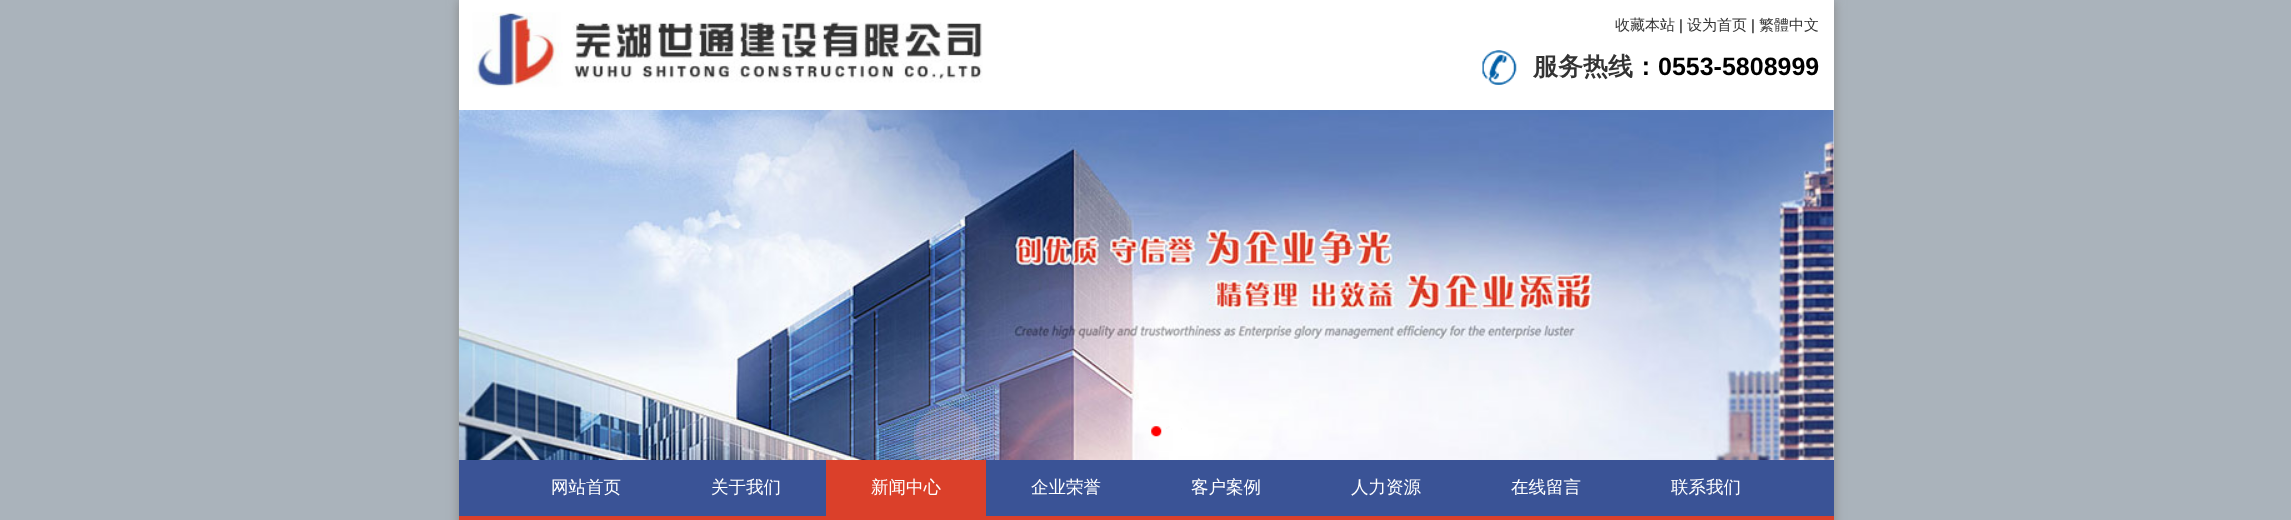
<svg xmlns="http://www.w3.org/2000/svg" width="2291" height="520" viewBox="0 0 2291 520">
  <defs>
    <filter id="blur1" x="-50%" y="-200%" width="200%" height="500%"><feGaussianBlur stdDeviation="6"/></filter>
  </defs>
  <rect width="100%" height="100%" fill="#aab3bb"/>
  <rect x="459" y="0" width="1375" height="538" fill="#888888" filter="url(#blur1)"/>
  <rect x="459" y="0" width="1375" height="460" fill="#ffffff"/>
  <image x="472" y="12" width="511" height="76" href="img1.png"/>
  <text x="1615" y="30" font-family="WenQuanYi Zen Hei" font-size="15" font-weight="500" fill="#333333">收藏本站</text>
  <text x="1679" y="30" font-family="Liberation Sans" font-size="15" fill="#000000">|</text>
  <text x="1687" y="30" font-family="WenQuanYi Zen Hei" font-size="15" font-weight="500" fill="#333333">设为首页</text>
  <text x="1751" y="30" font-family="Liberation Sans" font-size="15" fill="#000000">|</text>
  <text x="1759" y="30" font-family="WenQuanYi Zen Hei" font-size="15" font-weight="500" fill="#333333">繁體中文</text>
  <image x="1482" y="50" width="35" height="35" href="img2.png"/>
  <text x="1533" y="75" font-family="WenQuanYi Zen Hei" font-size="25" font-weight="bold" fill="#333333">服务热线</text>
  <text x="1633" y="75" font-family="WenQuanYi Zen Hei" font-size="25" font-weight="bold" fill="#000000">：</text>
  <text x="1658" y="75" font-family="Liberation Sans" font-size="25" font-weight="bold" fill="#000000">0553-5808999</text>
  <image x="458" y="110" width="1376" height="350" href="img3.png"/>
  <image x="1151" y="426" width="11" height="11" href="img4.png"/>
  <image x="1166" y="426" width="4" height="3" href="img5.png"/>
  <image x="1181" y="428" width="1" height="2" href="img6.png"/>
  <rect x="459" y="460" width="1375" height="56" fill="#3a5396"/>
  <rect x="459" y="516" width="1375" height="4" fill="#db402a"/>
  <text x="551" y="493" font-family="WenQuanYi Zen Hei" font-size="17.5" font-weight="500" fill="#ffffff">网站首页</text>
  <text x="711" y="493" font-family="WenQuanYi Zen Hei" font-size="17.5" font-weight="500" fill="#ffffff">关于我们</text>
  <rect x="826" y="460" width="160" height="56" fill="#db402a"/>
  <text x="871" y="493" font-family="WenQuanYi Zen Hei" font-size="17.5" font-weight="500" fill="#ffffff">新闻中心</text>
  <text x="1031" y="493" font-family="WenQuanYi Zen Hei" font-size="17.5" font-weight="500" fill="#ffffff">企业荣誉</text>
  <text x="1191" y="493" font-family="WenQuanYi Zen Hei" font-size="17.5" font-weight="500" fill="#ffffff">客户案例</text>
  <text x="1351" y="493" font-family="WenQuanYi Zen Hei" font-size="17.5" font-weight="500" fill="#ffffff">人力资源</text>
  <text x="1511" y="493" font-family="WenQuanYi Zen Hei" font-size="17.5" font-weight="500" fill="#ffffff">在线留言</text>
  <text x="1671" y="493" font-family="WenQuanYi Zen Hei" font-size="17.5" font-weight="500" fill="#ffffff">联系我们</text>
</svg>
